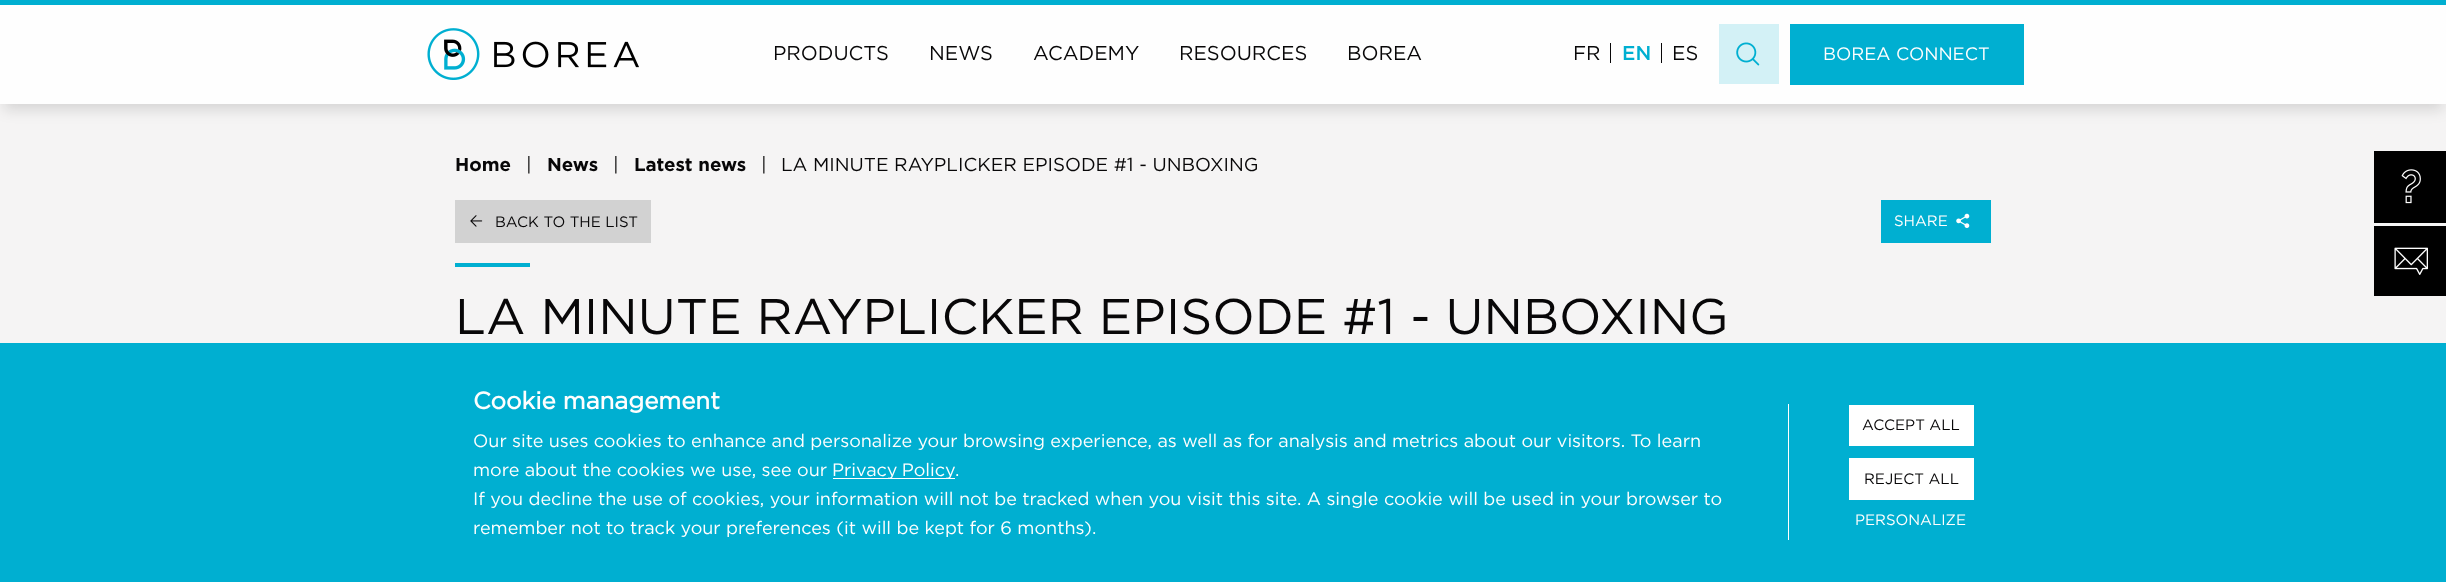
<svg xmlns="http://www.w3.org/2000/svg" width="2446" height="582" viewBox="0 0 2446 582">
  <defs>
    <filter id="blur1" x="-50%" y="-200%" width="200%" height="500%"><feGaussianBlur stdDeviation="7"/></filter>
  </defs>
  <rect width="100%" height="100%" fill="#f5f4f4"/>
  <rect x="4" y="14" width="2439" height="96" fill="#080708" fill-opacity="0.13" filter="url(#blur1)"/>
  <rect x="0" y="5" width="2446" height="99" fill="#fefefe"/>
  <rect x="0" y="0" width="2446" height="5" fill="#00afd1"/>
  <image x="427" y="28" width="212" height="52" href="img1.png"/>
  <text x="773" y="60" font-family="Gotham" font-size="20" fill="#080708">PRODUCTS</text>
  <text x="929" y="60" font-family="Gotham" font-size="20" fill="#080708">NEWS</text>
  <text x="1033" y="60" font-family="Gotham" font-size="20" fill="#080708">ACADEMY</text>
  <text x="1179" y="60" font-family="Gotham" font-size="20" fill="#080708">RESOURCES</text>
  <text x="1347" y="60" font-family="Gotham" font-size="20" fill="#080708">BOREA</text>
  <text x="1573" y="60" font-family="Gotham" font-size="20" fill="#080708">FR</text>
  <rect x="1610" y="43" width="1" height="20" fill="#080708"/>
  <text x="1622" y="60" font-family="Gotham" font-size="20" font-weight="500" fill="#00afd1">EN</text>
  <rect x="1661" y="43" width="1" height="20" fill="#080708"/>
  <text x="1672" y="60" font-family="Gotham" font-size="20" fill="#080708">ES</text>
  <rect x="1719" y="24" width="60" height="60" fill="#d3f1f6"/>
  <image x="1736" y="42" width="24" height="24" href="img2.png"/>
  <rect x="1790" y="24" width="234" height="61" fill="#00afd1"/>
  <text x="1823" y="60" font-family="Gotham" font-size="18" fill="#fefefe">BOREA CONNECT</text>
  <text x="455" y="171" font-family="Gotham" font-size="18.75" font-weight="bold" fill="#080708">Home</text>
  <text x="526" y="171" font-family="Gotham" font-size="18.75" fill="#080708">|</text>
  <text x="547" y="171" font-family="Gotham" font-size="18.75" font-weight="bold" fill="#080708">News</text>
  <text x="613" y="171" font-family="Gotham" font-size="18.75" fill="#080708">|</text>
  <text x="634" y="171" font-family="Gotham" font-size="18.75" font-weight="bold" fill="#080708">Latest news</text>
  <text x="761" y="171" font-family="Gotham" font-size="18.75" fill="#080708">|</text>
  <text x="781" y="171" font-family="Gotham" font-size="18.75" fill="#080708">LA MINUTE RAYPLICKER EPISODE #1 - UNBOXING</text>
  <rect x="455" y="200" width="196" height="43" fill="#d2d2d2"/>
  <image x="470" y="215" width="13" height="12" href="img3.png"/>
  <text x="495" y="227" font-family="Gotham" font-size="15" fill="#080708">BACK TO THE LIST</text>
  <rect x="1881" y="200" width="110" height="43" fill="#00afd1"/>
  <text x="1894" y="226" font-family="Gotham" font-size="15" fill="#fefefe">SHARE</text>
  <image x="1956" y="213" width="14" height="15" href="img4.png"/>
  <rect x="455" y="263" width="75" height="4" fill="#00afd1"/>
  <text x="455" y="334" font-family="Gotham" font-size="50" fill="#080708">LA MINUTE RAYPLICKER EPISODE #1 - UNBOXING</text>
  <rect x="2374" y="151" width="72" height="72" fill="#000000"/>
  <image x="2401" y="169" width="20" height="35" href="img5.png"/>
  <rect x="2374" y="226" width="72" height="70" fill="#000000"/>
  <image x="2394" y="247" width="34" height="28" href="img6.png"/>
  <rect x="0" y="343" width="2446" height="239" fill="#00afd1"/>
  <text x="473" y="409" font-family="'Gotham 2'" font-size="24" font-weight="bold" fill="#fefefe">Cookie management</text>
  <rect x="1788" y="404" width="1" height="136" fill="#ffffff"/>
  <text x="473" y="447" font-family="Gotham" font-size="18" fill="#fefefe">Our site uses cookies to enhance and personalize your browsing experience, as well as for analysis and metrics about our visitors. To learn</text>
  <text x="473" y="476" font-family="Gotham" font-size="18" fill="#fefefe">more about the cookies we use, see our</text>
  <rect x="833" y="478" width="122" height="1" fill="#ffffff"/>
  <text x="832" y="476" word-spacing="-1" font-family="Gotham" font-size="18" fill="#fefefe">Privacy Policy</text>
  <text x="955" y="476" font-family="Gotham" font-size="18" fill="#fefefe">.</text>
  <text x="473" y="505" font-family="Gotham" font-size="18" fill="#fefefe">If you decline the use of cookies, your information will not be tracked when you visit this site. A single cookie will be used in your browser to</text>
  <text x="473" y="534" font-family="Gotham" font-size="18" fill="#fefefe">remember not to track your preferences (it will be kept for 6 months).</text>
  <rect x="1849" y="405" width="125" height="41" fill="#ffffff"/>
  <text x="1862" y="430" font-family="Gotham" font-size="15" fill="#080708">ACCEPT ALL</text>
  <rect x="1849" y="458" width="125" height="42" fill="#ffffff"/>
  <text x="1864" y="484" font-family="Gotham" font-size="15" fill="#080708">REJECT ALL</text>
  <text x="1855" y="525" font-family="Gotham" font-size="15" fill="#fefefe">PERSONALIZE</text>
</svg>
